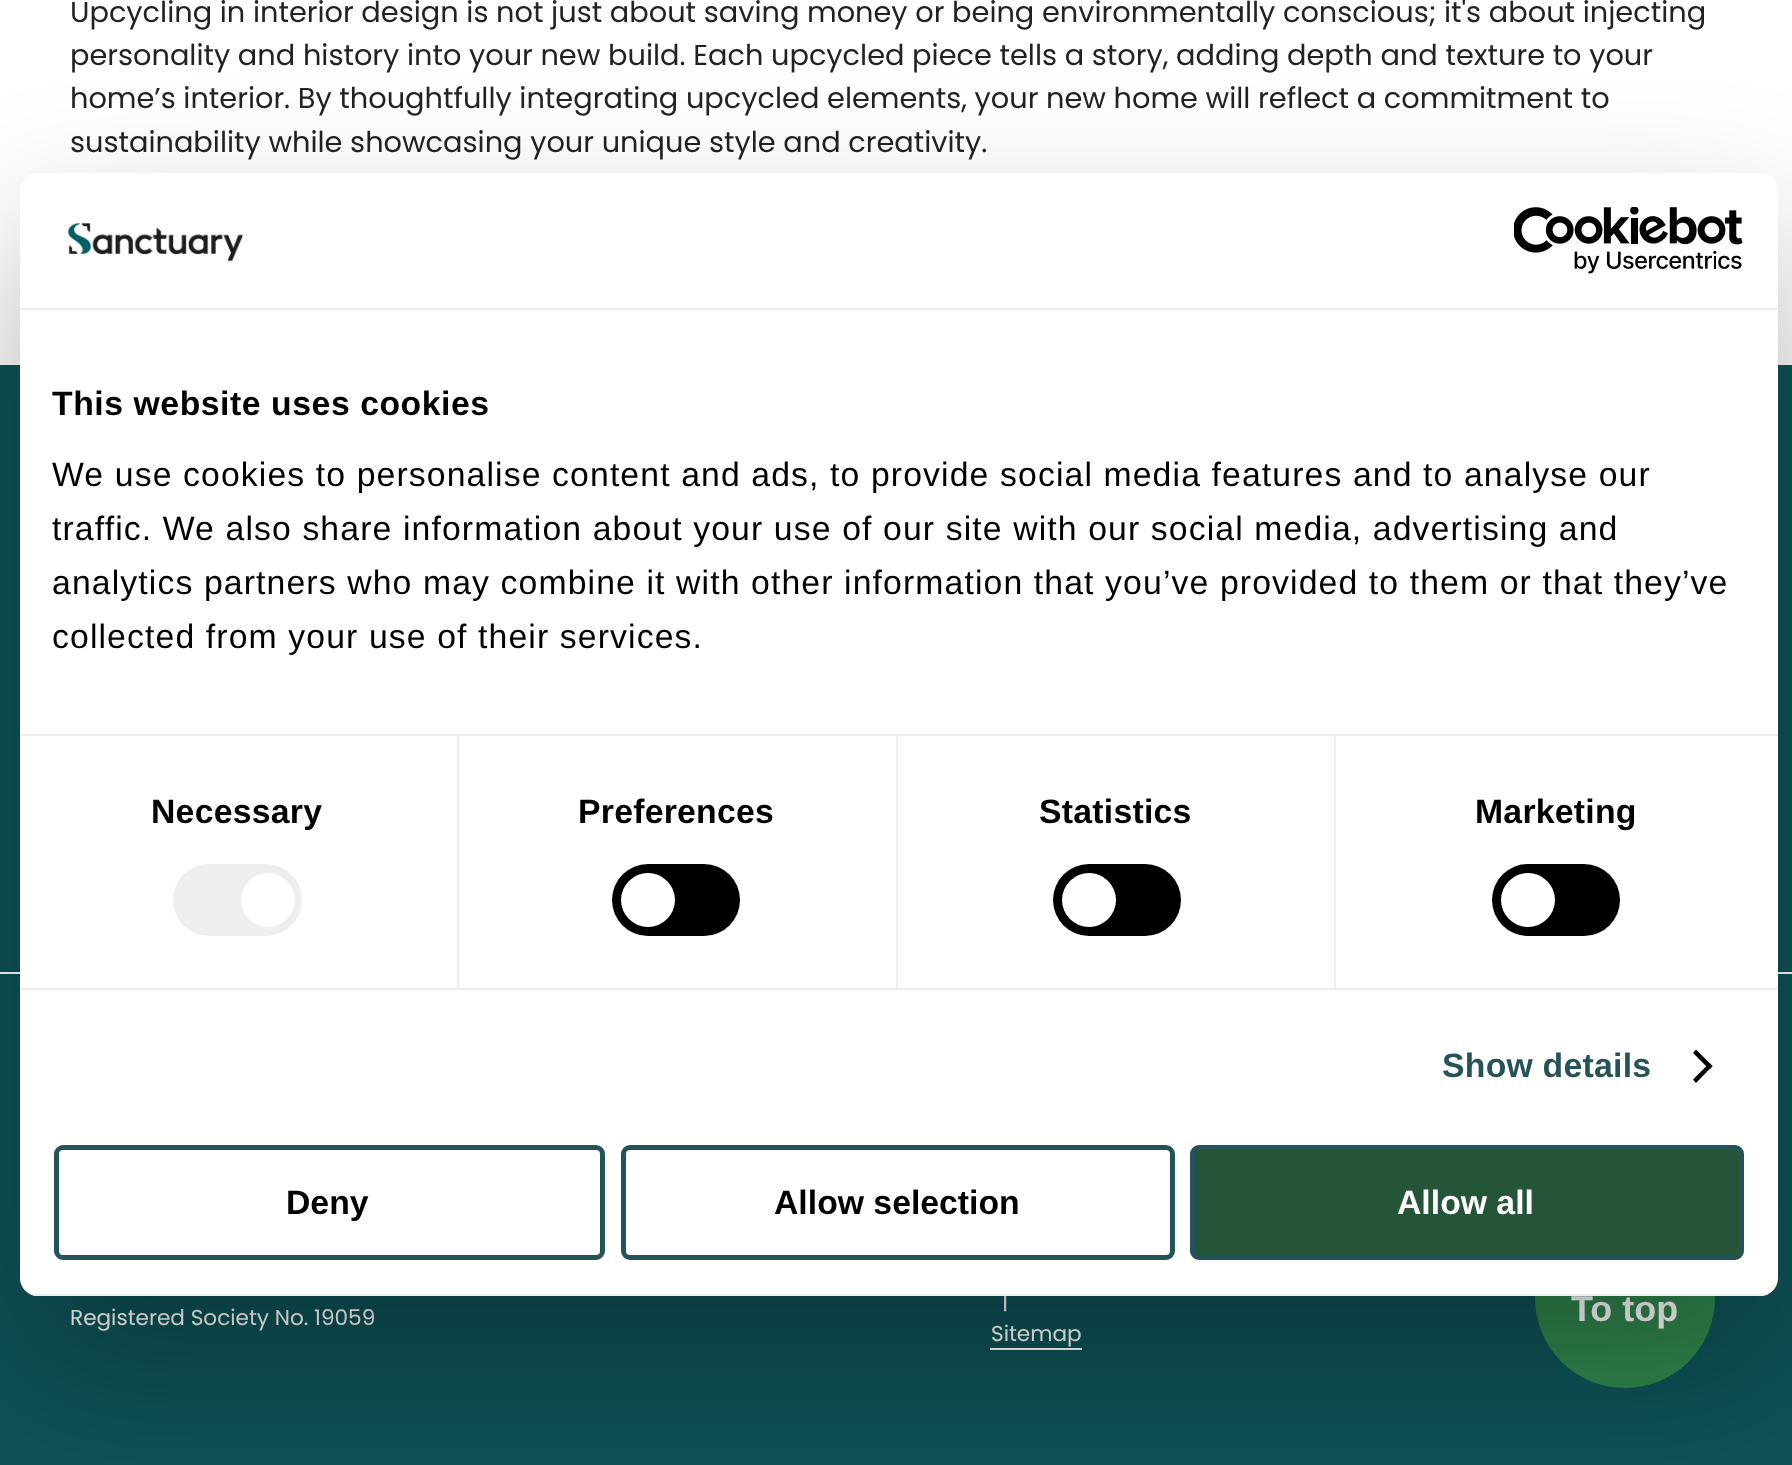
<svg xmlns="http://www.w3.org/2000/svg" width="1792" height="1465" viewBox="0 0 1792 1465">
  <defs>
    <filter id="blur1" x="-50%" y="-200%" width="200%" height="500%"><feGaussianBlur stdDeviation="76.5"/></filter>
    <clipPath id="clip1"><rect x="20" y="173" width="1758" height="1123" rx="18"/></clipPath>
  </defs>
  <rect width="100%" height="100%" fill="#ffffff"/>
  <text x="70" y="22" font-family="Poppins" font-size="28.8" fill="#222221">Upcycling in interior design is not just about saving money or being environmentally conscious; it's about injecting</text>
  <text x="70" y="65" font-family="Poppins" font-size="28.8" fill="#222221">personality and history into your new build. Each upcycled piece tells a story, adding depth and texture to your</text>
  <text x="70" y="108" font-family="Poppins" font-size="28.8" fill="#222221">home’s interior. By thoughtfully integrating upcycled elements, your new home will reflect a commitment to</text>
  <text x="70" y="152" font-family="Poppins" font-size="28.8" fill="#222221">sustainability while showcasing your unique style and creativity.</text>
  <rect x="0" y="365" width="1792" height="1100" fill="#0d5257"/>
  <circle cx="1625" cy="1298" r="90" fill="#2f864c"/>
  <text x="1571" y="1321" font-family="Liberation Sans" font-size="36" font-weight="bold" fill="#ffffff">To top</text>
  <rect x="0" y="972" width="1792" height="2" fill="#ffffff"/>
  <text x="70" y="1325" font-family="Poppins" font-size="21.6" fill="#ffffff">Registered Society No. 19059</text>
  <text x="1002" y="1309" font-family="Poppins" font-size="21.6" fill="#ffffff">|</text>
  <text x="991" y="1341" font-family="Poppins" font-size="21.6" fill="#ffffff">Sitemap</text>
  <rect x="990" y="1348" width="92" height="2" fill="#ffffff"/>
  <rect x="20" y="245" width="1758" height="1123" rx="18" fill="#000000" fill-opacity="0.3" filter="url(#blur1)"/>
  <rect x="20" y="173" width="1758" height="1123" rx="18" fill="#ffffff"/>
  <rect x="20" y="308" width="1758" height="2" fill="#eeeeee"/>
  <image x="67" y="222" width="176" height="40" href="img1.png"/>
  <image x="1514" y="207" width="229" height="67" href="img2.png"/>
  <rect x="20" y="734" width="1758" height="2" fill="#eeeeee"/>
  <text x="52" y="415" font-family="Liberation Sans" font-size="33.75" font-weight="bold" letter-spacing="0.55" fill="#000000">This website uses cookies</text>
  <text x="52" y="486" font-family="Liberation Sans" font-size="33.75" letter-spacing="1.12" fill="#000000">We use cookies to personalise content and ads, to provide social media features and to analyse our</text>
  <text x="52" y="540" font-family="Liberation Sans" font-size="33.75" letter-spacing="1.12" fill="#000000">traffic. We also share information about your use of our site with our social media, advertising and</text>
  <text x="52" y="594" font-family="Liberation Sans" font-size="33.75" letter-spacing="1.12" fill="#000000">analytics partners who may combine it with other information that you’ve provided to them or that they’ve</text>
  <text x="52" y="648" font-family="Liberation Sans" font-size="33.75" letter-spacing="1.12" fill="#000000">collected from your use of their services.</text>
  <rect x="20" y="988" width="1758" height="2" fill="#eeeeee"/>
  <rect x="457" y="736" width="2" height="252" fill="#eeeeee"/>
  <text x="151" y="823" font-family="Liberation Sans" font-size="33.75" font-weight="bold" letter-spacing="0.25" fill="#000000">Necessary</text>
  <rect x="173" y="864" width="129" height="72" rx="36" fill="#eeeeee"/>
  <circle cx="268" cy="900" r="27" fill="#ffffff"/>
  <rect x="896" y="736" width="2" height="252" fill="#eeeeee"/>
  <text x="578" y="823" font-family="Liberation Sans" font-size="33.75" font-weight="bold" letter-spacing="0.25" fill="#000000">Preferences</text>
  <rect x="612" y="864" width="128" height="72" rx="36" fill="#000000"/>
  <circle cx="648" cy="900" r="27" fill="#ffffff"/>
  <rect x="1334" y="736" width="2" height="252" fill="#eeeeee"/>
  <text x="1039" y="823" font-family="Liberation Sans" font-size="33.75" font-weight="bold" letter-spacing="0.25" fill="#000000">Statistics</text>
  <rect x="1053" y="864" width="128" height="72" rx="36" fill="#000000"/>
  <circle cx="1089" cy="900" r="27" fill="#ffffff"/>
  <text x="1475" y="823" font-family="Liberation Sans" font-size="33.75" font-weight="bold" letter-spacing="0.25" fill="#000000">Marketing</text>
  <rect x="1492" y="864" width="128" height="72" rx="36" fill="#000000"/>
  <circle cx="1528" cy="900" r="27" fill="#ffffff"/>
  <text x="1442" y="1077" font-family="Liberation Sans" font-size="33.75" font-weight="bold" letter-spacing="0.25" fill="#255358">Show details</text>
  <path d="M1696 1049.5L1712.5 1066L1709.5 1069.5L1693 1053Z" fill="#000000"/>
  <path d="M1709.5 1063L1712.5 1066L1696 1083L1693 1079.5Z" fill="#000000"/>
  <g clip-path="url(#clip1)">
    <rect x="30" y="1294" width="1738" height="2" fill="#eeeeee"/>
  </g>
  <rect x="56.5" y="1147.5" width="546" height="110" rx="6.5" fill="none" stroke="#255358" stroke-width="5"/>
  <text x="286" y="1214" font-family="Liberation Sans" font-size="33.75" font-weight="bold" fill="#000000">Deny</text>
  <rect x="623.5" y="1147.5" width="549" height="110" rx="6.5" fill="none" stroke="#255258" stroke-width="5"/>
  <text x="774" y="1214" font-family="Liberation Sans" font-size="33.75" font-weight="bold" fill="#000000">Allow selection</text>
  <rect x="1192.5" y="1147.5" width="549" height="110" rx="6.5" fill="#255538" stroke="#255258" stroke-width="5"/>
  <text x="1397" y="1214" font-family="Liberation Sans" font-size="33.75" font-weight="bold" fill="#ffffff">Allow all</text>
</svg>
